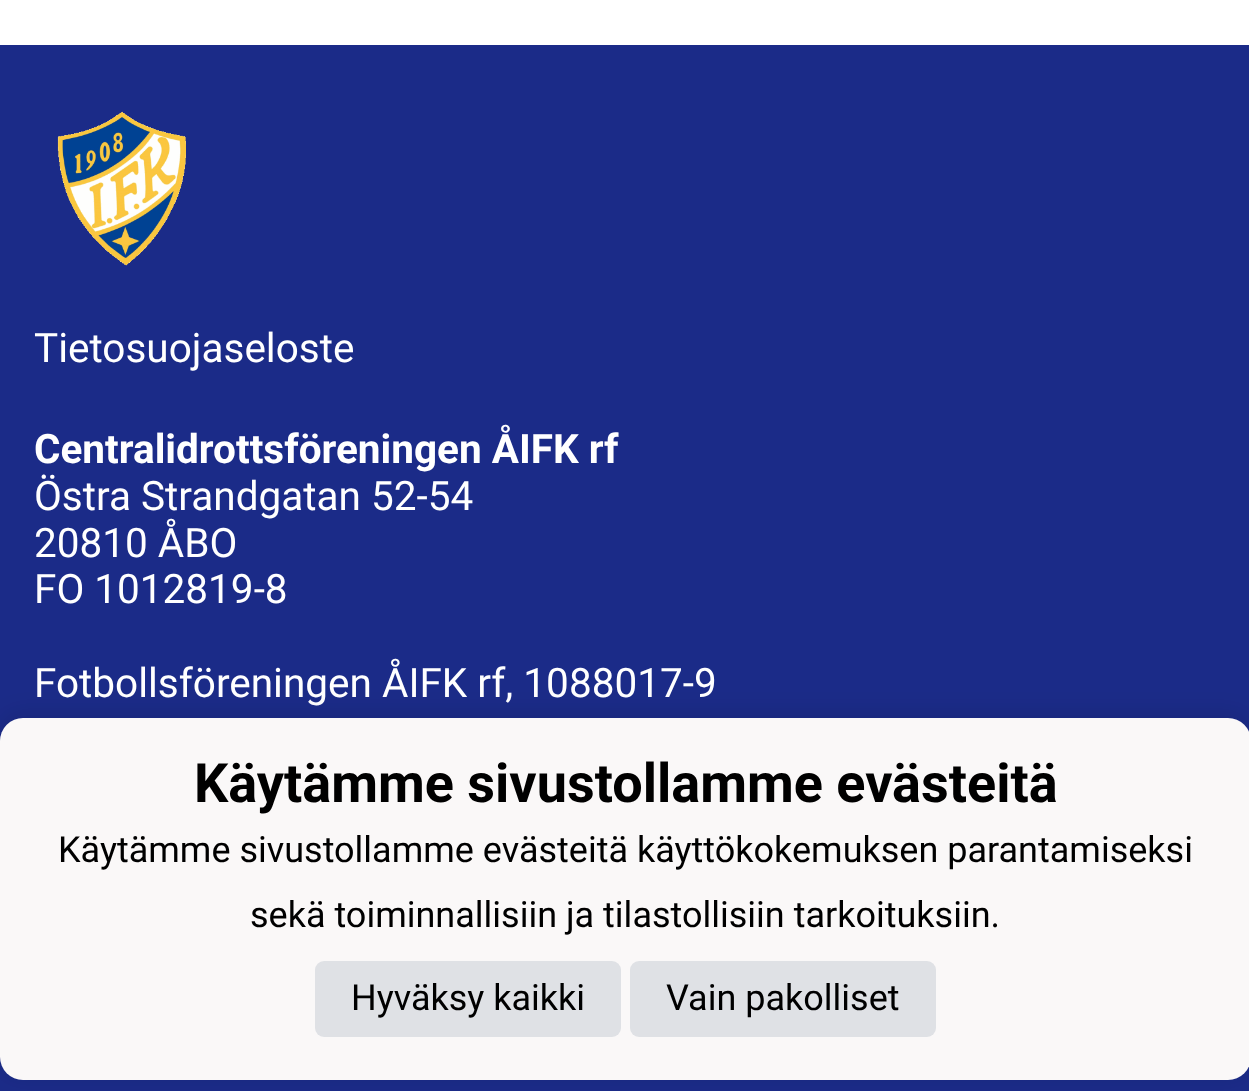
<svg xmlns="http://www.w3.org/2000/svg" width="1249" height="1091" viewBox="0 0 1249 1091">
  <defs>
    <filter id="blur1" x="-50%" y="-200%" width="200%" height="500%"><feGaussianBlur stdDeviation="11"/></filter>
  </defs>
  <rect width="100%" height="100%" fill="#ffffff"/>
  <rect x="0" y="45" width="1249" height="1046" fill="#1b2b88"/>
  <image x="57" y="111" width="129" height="155" href="img1.png"/>
  <text x="34" y="362" font-family="Roboto" font-size="40.5" fill="#ffffff">Tietosuojaseloste</text>
  <text x="34" y="463" font-family="Roboto" font-size="40.5" font-weight="bold" fill="#ffffff">Centralidrottsföreningen ÅIFK rf</text>
  <text x="34" y="510" font-family="Roboto" font-size="40.5" fill="#ffffff">Östra Strandgatan 52-54</text>
  <text x="34" y="557" font-family="Roboto" font-size="40.5" fill="#ffffff">20810 ÅBO</text>
  <text x="34" y="603" font-family="Roboto" font-size="40.5" fill="#ffffff">FO 1012819-8</text>
  <text x="34" y="697" font-family="Roboto" font-size="40.5" fill="#ffffff">Fotbollsföreningen ÅIFK rf, 1088017-9</text>
  <rect x="0" y="713" width="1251" height="363" rx="23" fill="#000000" fill-opacity="0.1" filter="url(#blur1)"/>
  <rect x="0" y="718" width="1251" height="362" rx="23" fill="#faf8f8"/>
  <text x="194" y="802" font-family="Roboto" font-size="54" font-weight="bold" fill="#000000">Käytämme sivustollamme evästeitä</text>
  <text x="58" y="862" font-family="Roboto" font-size="36" fill="#000000">Käytämme sivustollamme evästeitä käyttökokemuksen parantamiseksi</text>
  <text x="250" y="927" font-family="Roboto" font-size="36" fill="#000000">sekä toiminnallisiin ja tilastollisiin tarkoituksiin.</text>
  <rect x="315" y="961" width="306" height="76" rx="9" fill="#dfe1e5"/>
  <text x="351" y="1010" font-family="Roboto" font-size="36" fill="#000000">Hyväksy kaikki</text>
  <rect x="630" y="961" width="306" height="76" rx="9" fill="#dfe1e5"/>
  <text x="666" y="1010" font-family="Roboto" font-size="36" fill="#000000">Vain pakolliset</text>
</svg>
